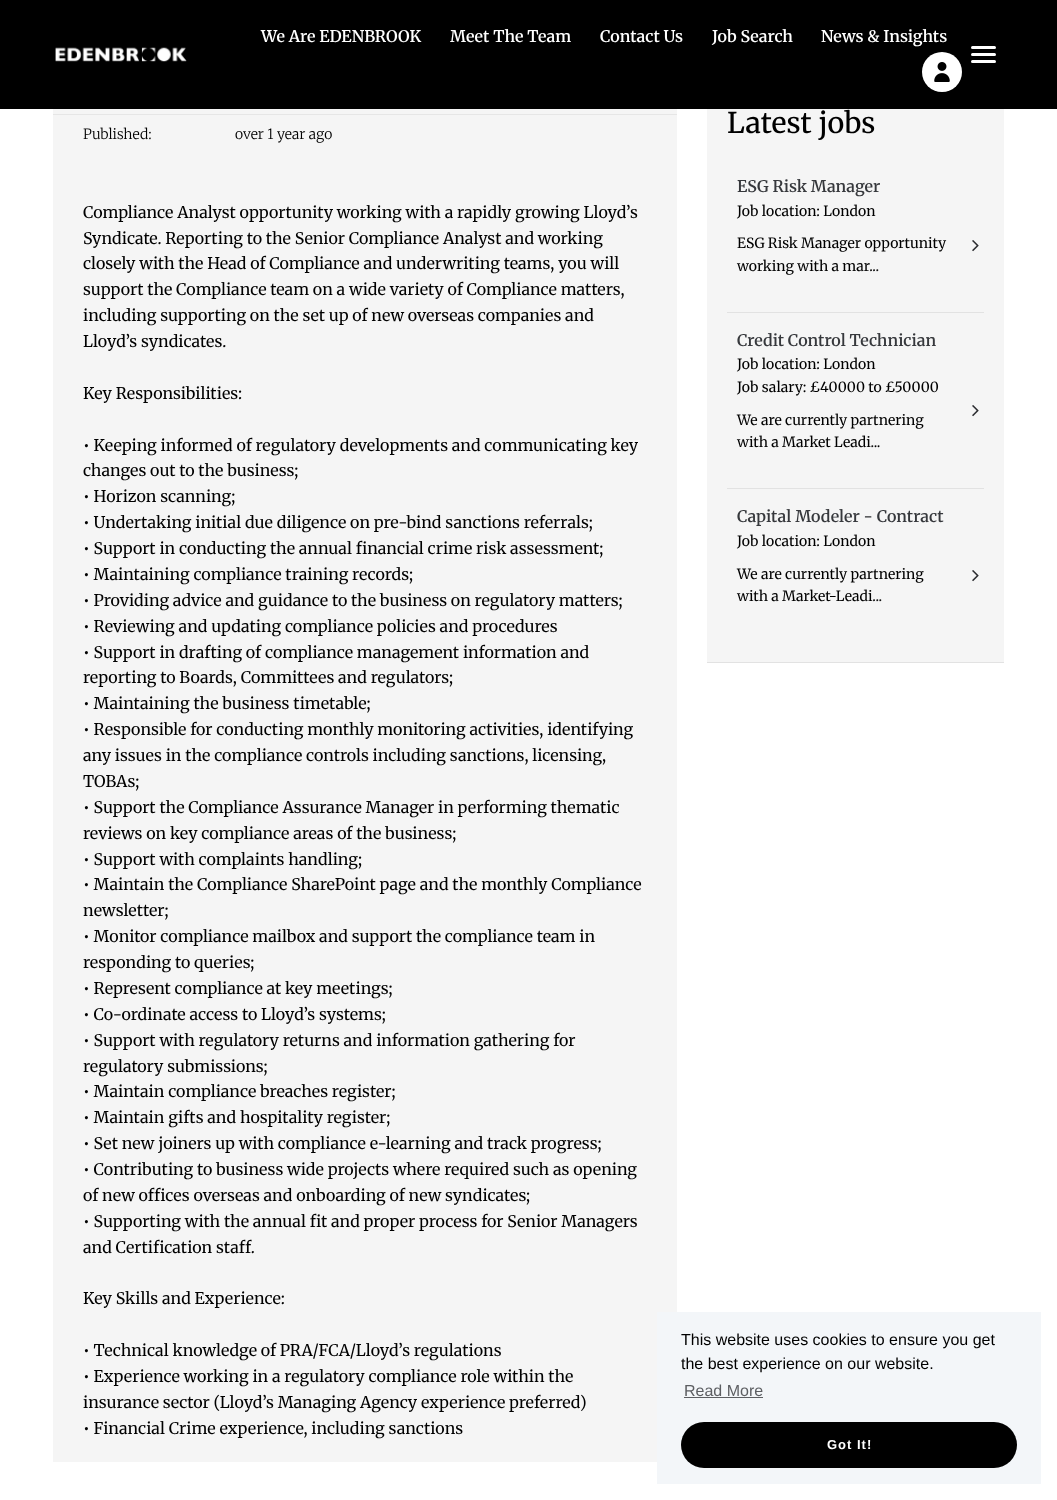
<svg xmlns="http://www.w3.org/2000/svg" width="1057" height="1500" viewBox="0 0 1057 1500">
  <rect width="100%" height="100%" fill="#ffffff"/>
  <rect x="0" y="0" width="1057" height="109" fill="#000000"/>
  <text x="261" y="42" font-family="Merriweather" font-size="16" font-weight="600" fill="#ffffff">We Are EDENBROOK</text>
  <text x="450" y="42" font-family="Merriweather" font-size="16" font-weight="600" fill="#ffffff">Meet The Team</text>
  <text x="600" y="42" font-family="Merriweather" font-size="16" font-weight="600" fill="#ffffff">Contact Us</text>
  <text x="712" y="42" font-family="Merriweather" font-size="16" font-weight="600" fill="#ffffff">Job Search</text>
  <text x="821" y="42" font-family="Merriweather" font-size="16" font-weight="600" fill="#ffffff">News &amp; Insights</text>
  <circle cx="942" cy="72" r="20" fill="#ffffff"/>
  <image x="934" y="62" width="16" height="20" href="img1.png"/>
  <image x="55" y="47" width="132" height="15" href="img2.png"/>
  <rect x="971" y="53" width="25" height="3" rx="1.5" fill="#ffffff"/>
  <rect x="971" y="46" width="25" height="3" rx="1.5" fill="#ffffff"/>
  <rect x="971" y="60" width="25" height="3" rx="1.5" fill="#ffffff"/>
  <rect x="53" y="109" width="624" height="1353" fill="#f5f5f5"/>
  <rect x="53" y="114" width="624" height="1" fill="#e6e6e6"/>
  <text x="83" y="139" font-family="'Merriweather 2'" font-size="14" font-weight="300" fill="#000000">Published:</text>
  <text x="235" y="139" font-family="'Merriweather 2'" font-size="14" font-weight="300" fill="#000000">over 1 year ago</text>
  <text x="83" y="218" font-family="Merriweather" font-size="16" font-weight="300" fill="#000000">Compliance Analyst opportunity working with a rapidly growing Lloyd’s</text>
  <text x="83" y="244" font-family="Merriweather" font-size="16" font-weight="300" fill="#000000">Syndicate. Reporting to the Senior Compliance Analyst and working</text>
  <text x="83" y="269" font-family="Merriweather" font-size="16" font-weight="300" fill="#000000">closely with the Head of Compliance and underwriting teams, you will</text>
  <text x="83" y="295" font-family="Merriweather" font-size="16" font-weight="300" fill="#000000">support the Compliance team on a wide variety of Compliance matters,</text>
  <text x="83" y="321" font-family="Merriweather" font-size="16" font-weight="300" fill="#000000">including supporting on the set up of new overseas companies and</text>
  <text x="83" y="347" font-family="Merriweather" font-size="16" font-weight="300" fill="#000000">Lloyd’s syndicates.</text>
  <text x="83" y="399" font-family="Merriweather" font-size="16" font-weight="300" fill="#000000">Key Responsibilities:</text>
  <text x="83" y="451" font-family="Merriweather" font-size="16" font-weight="300" fill="#000000">• Keeping informed of regulatory developments and communicating key</text>
  <text x="83" y="476" font-family="Merriweather" font-size="16" font-weight="300" fill="#000000">changes out to the business;</text>
  <text x="83" y="502" font-family="Merriweather" font-size="16" font-weight="300" fill="#000000">• Horizon scanning;</text>
  <text x="83" y="528" font-family="Merriweather" font-size="16" font-weight="300" fill="#000000">• Undertaking initial due diligence on pre-bind sanctions referrals;</text>
  <text x="83" y="554" font-family="Merriweather" font-size="16" font-weight="300" fill="#000000">• Support in conducting the annual financial crime risk assessment;</text>
  <text x="83" y="580" font-family="Merriweather" font-size="16" font-weight="300" fill="#000000">• Maintaining compliance training records;</text>
  <text x="83" y="606" font-family="Merriweather" font-size="16" font-weight="300" fill="#000000">• Providing advice and guidance to the business on regulatory matters;</text>
  <text x="83" y="632" font-family="Merriweather" font-size="16" font-weight="300" fill="#000000">• Reviewing and updating compliance policies and procedures</text>
  <text x="83" y="658" font-family="Merriweather" font-size="16" font-weight="300" fill="#000000">• Support in drafting of compliance management information and</text>
  <text x="83" y="683" font-family="Merriweather" font-size="16" font-weight="300" fill="#000000">reporting to Boards, Committees and regulators;</text>
  <text x="83" y="709" font-family="Merriweather" font-size="16" font-weight="300" fill="#000000">• Maintaining the business timetable;</text>
  <text x="83" y="735" font-family="Merriweather" font-size="16" font-weight="300" fill="#000000">• Responsible for conducting monthly monitoring activities, identifying</text>
  <text x="83" y="761" font-family="Merriweather" font-size="16" font-weight="300" fill="#000000">any issues in the compliance controls including sanctions, licensing,</text>
  <text x="83" y="787" font-family="Merriweather" font-size="16" font-weight="300" fill="#000000">TOBAs;</text>
  <text x="83" y="813" font-family="Merriweather" font-size="16" font-weight="300" fill="#000000">• Support the Compliance Assurance Manager in performing thematic</text>
  <text x="83" y="839" font-family="Merriweather" font-size="16" font-weight="300" fill="#000000">reviews on key compliance areas of the business;</text>
  <text x="83" y="865" font-family="Merriweather" font-size="16" font-weight="300" fill="#000000">• Support with complaints handling;</text>
  <text x="83" y="890" font-family="Merriweather" font-size="16" font-weight="300" fill="#000000">• Maintain the Compliance SharePoint page and the monthly Compliance</text>
  <text x="83" y="916" font-family="Merriweather" font-size="16" font-weight="300" fill="#000000">newsletter;</text>
  <text x="83" y="942" font-family="Merriweather" font-size="16" font-weight="300" fill="#000000">• Monitor compliance mailbox and support the compliance team in</text>
  <text x="83" y="968" font-family="Merriweather" font-size="16" font-weight="300" fill="#000000">responding to queries;</text>
  <text x="83" y="994" font-family="Merriweather" font-size="16" font-weight="300" fill="#000000">• Represent compliance at key meetings;</text>
  <text x="83" y="1020" font-family="Merriweather" font-size="16" font-weight="300" fill="#000000">• Co-ordinate access to Lloyd’s systems;</text>
  <text x="83" y="1046" font-family="Merriweather" font-size="16" font-weight="300" fill="#000000">• Support with regulatory returns and information gathering for</text>
  <text x="83" y="1072" font-family="Merriweather" font-size="16" font-weight="300" fill="#000000">regulatory submissions;</text>
  <text x="83" y="1097" font-family="Merriweather" font-size="16" font-weight="300" fill="#000000">• Maintain compliance breaches register;</text>
  <text x="83" y="1123" font-family="Merriweather" font-size="16" font-weight="300" fill="#000000">• Maintain gifts and hospitality register;</text>
  <text x="83" y="1149" font-family="Merriweather" font-size="16" font-weight="300" fill="#000000">• Set new joiners up with compliance e-learning and track progress;</text>
  <text x="83" y="1175" font-family="Merriweather" font-size="16" font-weight="300" fill="#000000">• Contributing to business wide projects where required such as opening</text>
  <text x="83" y="1201" font-family="Merriweather" font-size="16" font-weight="300" fill="#000000">of new offices overseas and onboarding of new syndicates;</text>
  <text x="83" y="1227" font-family="Merriweather" font-size="16" font-weight="300" fill="#000000">• Supporting with the annual fit and proper process for Senior Managers</text>
  <text x="83" y="1253" font-family="Merriweather" font-size="16" font-weight="300" fill="#000000">and Certification staff.</text>
  <text x="83" y="1304" font-family="Merriweather" font-size="16" font-weight="300" fill="#000000">Key Skills and Experience:</text>
  <text x="83" y="1356" font-family="Merriweather" font-size="16" font-weight="300" fill="#000000">• Technical knowledge of PRA/FCA/Lloyd’s regulations</text>
  <text x="83" y="1382" font-family="Merriweather" font-size="16" font-weight="300" fill="#000000">• Experience working in a regulatory compliance role within the</text>
  <text x="83" y="1408" font-family="Merriweather" font-size="16" font-weight="300" fill="#000000">insurance sector (Lloyd’s Managing Agency experience preferred)</text>
  <text x="83" y="1434" font-family="Merriweather" font-size="16" font-weight="300" fill="#000000">• Financial Crime experience, including sanctions</text>
  <rect x="707" y="109" width="297" height="553" fill="#f5f5f5"/>
  <rect x="707" y="662" width="297" height="1" fill="#e2e2e2"/>
  <text x="727" y="133" font-family="Merriweather" font-size="28.5" font-weight="500" fill="#000000">Latest jobs</text>
  <rect x="727" y="312" width="257" height="1" fill="#e2e2e2"/>
  <text x="737" y="192" font-family="Merriweather" font-size="16" font-weight="600" fill="#36383c">ESG Risk Manager</text>
  <text x="737" y="216" font-family="Merriweather" font-size="14" font-weight="300" fill="#000000">Job location: London</text>
  <text x="737" y="248" font-family="Merriweather" font-size="14" font-weight="300" fill="#000000">ESG Risk Manager opportunity</text>
  <text x="737" y="271" font-family="Merriweather" font-size="14" font-weight="300" fill="#000000">working with a mar...</text>
  <image x="972" y="240" width="7" height="12" href="img3.png"/>
  <rect x="727" y="488" width="257" height="1" fill="#e2e2e2"/>
  <text x="737" y="346" font-family="Merriweather" font-size="16" font-weight="600" fill="#36383c">Credit Control Technician</text>
  <text x="737" y="369" font-family="Merriweather" font-size="14" font-weight="300" fill="#000000">Job location: London</text>
  <text x="737" y="392" font-family="Merriweather" font-size="14" font-weight="300" fill="#000000">Job salary: £40000 to £50000</text>
  <text x="737" y="425" font-family="Merriweather" font-size="14" font-weight="300" fill="#000000">We are currently partnering</text>
  <text x="737" y="447" font-family="Merriweather" font-size="14" font-weight="300" fill="#000000">with a Market Leadi...</text>
  <image x="972" y="405" width="7" height="12" href="img3.png"/>
  <text x="737" y="522" font-family="Merriweather" font-size="16" font-weight="600" fill="#36383c">Capital Modeler - Contract</text>
  <text x="737" y="546" font-family="Merriweather" font-size="14" font-weight="300" fill="#000000">Job location: London</text>
  <text x="737" y="579" font-family="Merriweather" font-size="14" font-weight="300" fill="#000000">We are currently partnering</text>
  <text x="737" y="601" font-family="Merriweather" font-size="14" font-weight="300" fill="#000000">with a Market-Leadi...</text>
  <image x="972" y="570" width="7" height="12" href="img3.png"/>
  <rect x="657" y="1312" width="384" height="172" fill="#f3f6f9"/>
  <text x="681" y="1345" font-family="Liberation Sans" font-size="16" fill="#000000">This website uses cookies to ensure you get</text>
  <text x="681" y="1369" font-family="Liberation Sans" font-size="16" fill="#000000">the best experience on our website.</text>
  <text x="684" y="1396" font-family="Liberation Sans" font-size="16" fill="#5c5e62">Read More</text>
  <rect x="684" y="1397" width="79" height="1" fill="#5c5e62"/>
  <rect x="681" y="1422" width="336" height="46" rx="23" fill="#000000"/>
  <text x="827" y="1449" font-family="Liberation Sans" font-size="13" font-weight="bold" letter-spacing="1" fill="#ffffff">Got It!</text>
</svg>
